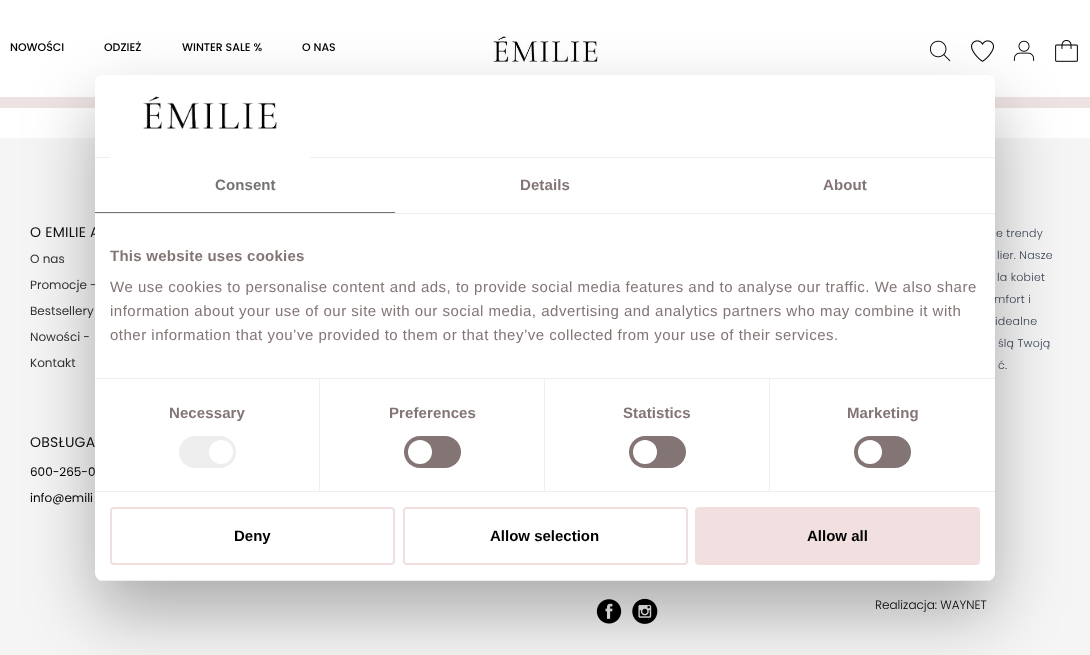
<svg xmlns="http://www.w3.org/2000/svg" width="1090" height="655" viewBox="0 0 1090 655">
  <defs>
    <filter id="blur1" x="-50%" y="-200%" width="200%" height="500%"><feGaussianBlur stdDeviation="34"/></filter>
    <clipPath id="clip1"><rect x="95" y="75" width="900" height="506" rx="8"/></clipPath>
  </defs>
  <rect width="100%" height="100%" fill="#ffffff"/>
  <text x="10" y="51" font-family="Poppins" font-size="11" font-weight="500" fill="#000000">NOWOŚCI</text>
  <text x="104" y="51" font-family="Poppins" font-size="11" font-weight="500" fill="#000000">ODZIEŻ</text>
  <text x="182" y="51" font-family="Poppins" font-size="11" font-weight="500" fill="#000000">WINTER SALE %</text>
  <text x="302" y="51" font-family="Poppins" font-size="11" font-weight="500" fill="#000000">O NAS</text>
  <image x="493" y="36" width="105" height="26" href="img1.png"/>
  <image x="929" y="40" width="22" height="22" href="img2.png"/>
  <image x="971" y="40" width="24" height="22" href="img3.png"/>
  <image x="1013" y="40" width="22" height="21" href="img4.png"/>
  <image x="1055" y="40" width="23" height="22" href="img5.png"/>
  <rect x="0" y="97" width="1090" height="11" fill="#ede3e2"/>
  <rect x="0" y="138" width="1090" height="517" fill="#f5f5f5"/>
  <text x="30" y="237" font-family="Poppins" font-size="14" letter-spacing="0.25" fill="#111111">O EMILIE A</text>
  <text x="30" y="263" font-family="Poppins" font-size="12" fill="#333333">O nas</text>
  <text x="30" y="289" font-family="Poppins" font-size="12" fill="#333333">Promocje -</text>
  <text x="30" y="315" font-family="Poppins" font-size="12" fill="#333333">Bestsellery</text>
  <text x="30" y="341" font-family="Poppins" font-size="12" fill="#333333">Nowości -</text>
  <text x="30" y="367" font-family="Poppins" font-size="12" fill="#333333">Kontakt</text>
  <text x="30" y="447" font-family="Poppins" font-size="14" letter-spacing="0.25" fill="#111111">OBSŁUGA</text>
  <text x="30" y="476" font-family="Poppins" font-size="12" fill="#000000">600-265-0</text>
  <text x="30" y="502" font-family="Poppins" font-size="12" fill="#000000">info@emili</text>
  <image x="596" y="599" width="26" height="25" href="img6.png"/>
  <image x="632" y="598" width="26" height="26" href="img7.png"/>
  <text x="996" y="237" font-family="Poppins" font-size="11" font-weight="300" letter-spacing="0.25" fill="#374151">e trendy</text>
  <text x="997" y="259" font-family="Poppins" font-size="11" font-weight="300" letter-spacing="0.25" fill="#374151">lier. Nasze</text>
  <text x="997" y="281" font-family="Poppins" font-size="11" font-weight="300" letter-spacing="0.25" fill="#374151">la kobiet</text>
  <text x="994" y="303" font-family="Poppins" font-size="11" font-weight="300" letter-spacing="0.25" fill="#374151">mfort i</text>
  <text x="995" y="325" font-family="Poppins" font-size="11" font-weight="300" letter-spacing="0.25" fill="#374151">idealne</text>
  <text x="998" y="347" font-family="Poppins" font-size="11" font-weight="300" letter-spacing="0.25" fill="#374151">ślą Twoją</text>
  <text x="998" y="369" font-family="Poppins" font-size="11" font-weight="300" letter-spacing="0.25" fill="#374151">ć.</text>
  <text x="875" y="609" font-family="Poppins" font-size="12" font-weight="300" fill="#000000">Realizacja: WAYNET</text>
  <rect x="95" y="107" width="900" height="506" rx="8" fill="#000000" fill-opacity="0.3" filter="url(#blur1)"/>
  <rect x="95" y="75" width="900" height="506" rx="8" fill="#ffffff"/>
  <rect x="95" y="157" width="900" height="1" fill="#eeeeee"/>
  <image x="110" y="96" width="200" height="62" href="img8.png"/>
  <rect x="95" y="213" width="900" height="1" fill="#eeeeee"/>
  <rect x="95" y="212" width="300" height="1" fill="#737373"/>
  <text x="215" y="190" font-family="Liberation Sans" font-size="15" font-weight="bold" letter-spacing="0.1" fill="#737373">Consent</text>
  <text x="520" y="190" font-family="Liberation Sans" font-size="15" font-weight="bold" letter-spacing="0.1" fill="#847575">Details</text>
  <text x="823" y="190" font-family="Liberation Sans" font-size="15" font-weight="bold" letter-spacing="0.1" fill="#847575">About</text>
  <rect x="95" y="378" width="900" height="1" fill="#eeeeee"/>
  <text x="110" y="261" font-family="Liberation Sans" font-size="15" font-weight="bold" letter-spacing="0.25" fill="#847575">This website uses cookies</text>
  <text x="110" y="292" font-family="Liberation Sans" font-size="15" letter-spacing="0.5" fill="#847575">We use cookies to personalise content and ads, to provide social media features and to analyse our traffic. We also share</text>
  <text x="110" y="316" font-family="Liberation Sans" font-size="15" letter-spacing="0.5" fill="#847575">information about your use of our site with our social media, advertising and analytics partners who may combine it with</text>
  <text x="110" y="340" font-family="Liberation Sans" font-size="15" letter-spacing="0.5" fill="#847575">other information that you’ve provided to them or that they’ve collected from your use of their services.</text>
  <rect x="95" y="491" width="900" height="1" fill="#eeeeee"/>
  <rect x="319" y="379" width="1" height="112" fill="#eeeeee"/>
  <text x="169" y="418" font-family="Liberation Sans" font-size="15" font-weight="bold" letter-spacing="0.1" fill="#847575">Necessary</text>
  <rect x="179" y="436" width="57" height="32" rx="16" fill="#eeeeee"/>
  <circle cx="221" cy="452" r="12" fill="#ffffff"/>
  <rect x="544" y="379" width="1" height="112" fill="#eeeeee"/>
  <text x="389" y="418" font-family="Liberation Sans" font-size="15" font-weight="bold" letter-spacing="0.1" fill="#847575">Preferences</text>
  <rect x="404" y="436" width="57" height="32" rx="16" fill="#847575"/>
  <circle cx="420" cy="452" r="12" fill="#ffffff"/>
  <rect x="769" y="379" width="1" height="112" fill="#eeeeee"/>
  <text x="623" y="418" font-family="Liberation Sans" font-size="15" font-weight="bold" letter-spacing="0.1" fill="#847575">Statistics</text>
  <rect x="629" y="436" width="57" height="32" rx="16" fill="#847575"/>
  <circle cx="645" cy="452" r="12" fill="#ffffff"/>
  <text x="847" y="418" font-family="Liberation Sans" font-size="15" font-weight="bold" letter-spacing="0.1" fill="#847575">Marketing</text>
  <rect x="854" y="436" width="57" height="32" rx="16" fill="#847575"/>
  <circle cx="870" cy="452" r="12" fill="#ffffff"/>
  <g clip-path="url(#clip1)">
    <rect x="95" y="580" width="900" height="1" fill="#eeeeee"/>
  </g>
  <rect x="111" y="508" width="283" height="56" rx="3" fill="none" stroke="#f1dfdf" stroke-width="2"/>
  <text x="234" y="541" font-family="Liberation Sans" font-size="15" font-weight="bold" fill="#000000">Deny</text>
  <rect x="404" y="508" width="283" height="56" rx="3" fill="none" stroke="#f1dfdf" stroke-width="2"/>
  <text x="490" y="541" font-family="Liberation Sans" font-size="15" font-weight="bold" fill="#000000">Allow selection</text>
  <rect x="696" y="508" width="283" height="56" rx="3" fill="#f2dfdf" stroke="#f1dfdf" stroke-width="2"/>
  <text x="807" y="541" font-family="Liberation Sans" font-size="15" font-weight="bold" fill="#000000">Allow all</text>
</svg>
